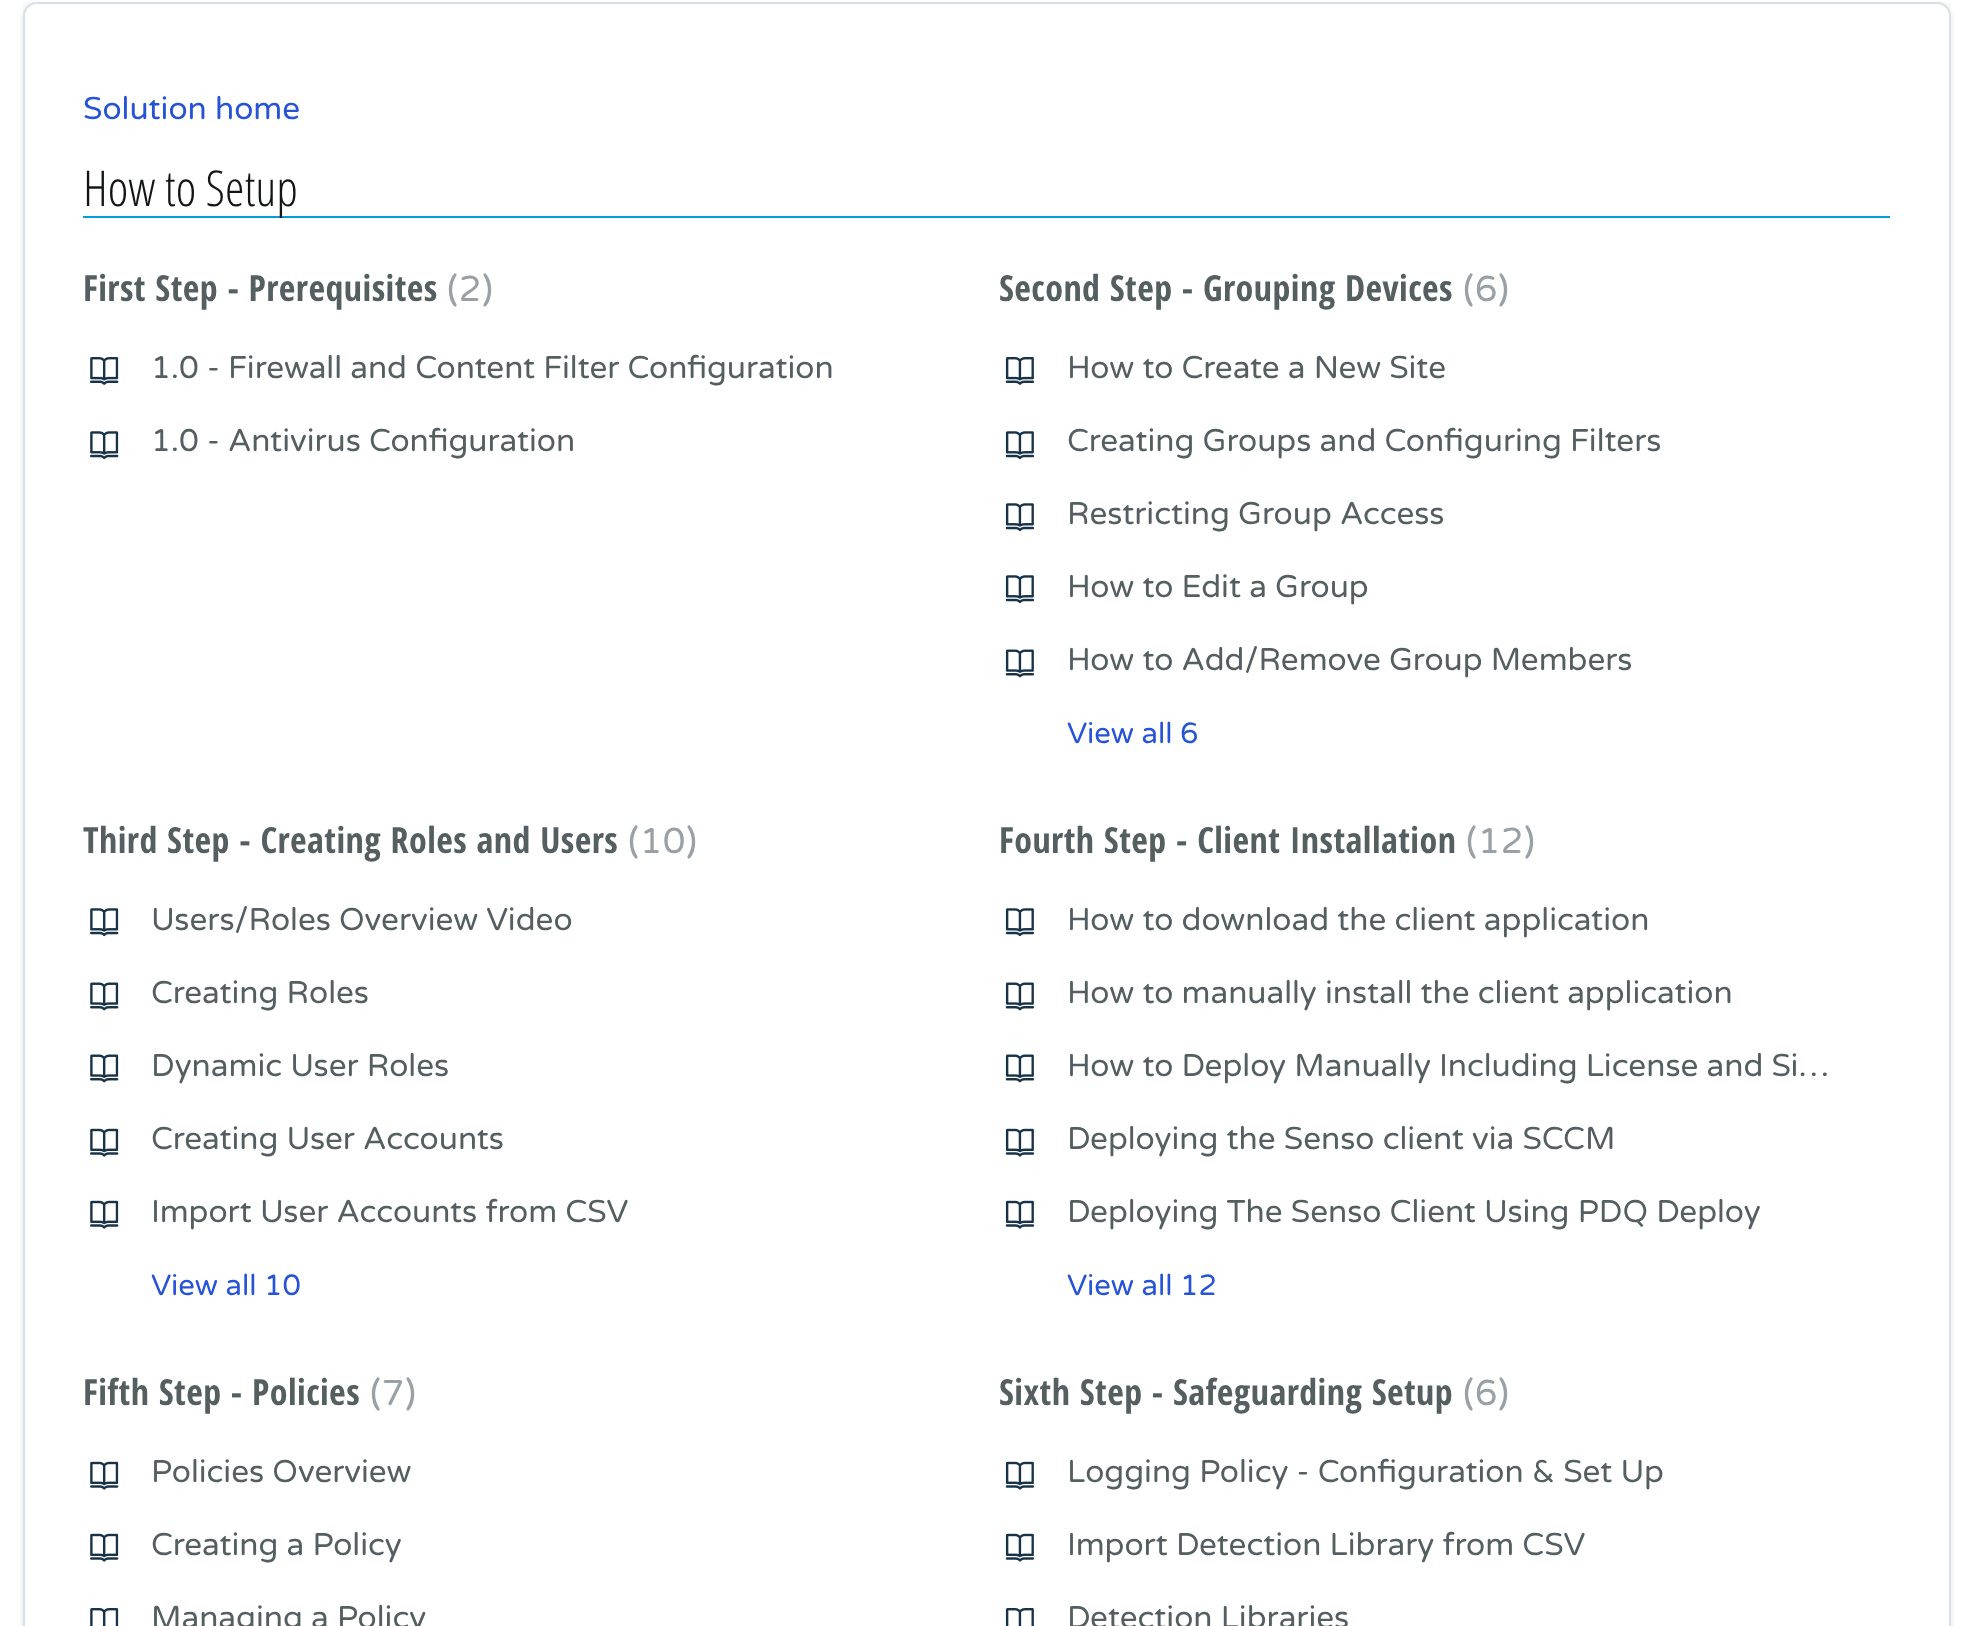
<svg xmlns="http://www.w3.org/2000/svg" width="1972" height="1626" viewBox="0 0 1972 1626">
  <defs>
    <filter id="blur1" x="-50%" y="-200%" width="200%" height="500%"><feGaussianBlur stdDeviation="2"/></filter>
  </defs>
  <rect width="100%" height="100%" fill="#ffffff"/>
  <rect x="23" y="2" width="1928" height="14" fill="#f8f9fa"/>
  <rect x="23" y="5" width="1928" height="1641" rx="14" fill="#3f3f44" fill-opacity="0.15" filter="url(#blur1)"/>
  <rect x="24" y="3" width="1926" height="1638" rx="13" fill="#ffffff" stroke="#dadfe3" stroke-width="2"/>
  <text x="83" y="119" font-family="Varela Round" font-size="31.5" fill="#2753d7">Solution home</text>
  <rect x="83" y="216" width="1807" height="2" fill="#049cdb"/>
  <text x="83" y="206" font-family="Open Sans Condensed" font-size="49.5" font-weight="300" fill="#131516">How to Setup</text>
  <text x="83" y="301" font-family="Open Sans Condensed" font-size="36" font-weight="bold" letter-spacing="0.45" fill="#555f61">First Step - Prerequisites</text>
  <text x="447" y="301" font-family="Varela Round" font-size="36" letter-spacing="0.45" fill="#9aa1a6">(2)</text>
  <image x="90" y="357" width="29" height="28" href="img1.png"/>
  <text x="151" y="378" font-family="Varela Round" font-size="31.5" fill="#555f61">1.0 - Firewall and Content Filter Configuration</text>
  <image x="90" y="431" width="29" height="29" href="img2.png"/>
  <text x="151" y="451" font-family="Varela Round" font-size="31.5" fill="#555f61">1.0 - Antivirus Configuration</text>
  <text x="999" y="301" font-family="Open Sans Condensed" font-size="36" font-weight="bold" letter-spacing="0.45" fill="#555f61">Second Step - Grouping Devices</text>
  <text x="1463" y="301" font-family="Varela Round" font-size="36" letter-spacing="0.45" fill="#9aa1a6">(6)</text>
  <image x="1005" y="357" width="30" height="28" href="img3.png"/>
  <text x="1067" y="378" font-family="Varela Round" font-size="31.5" fill="#555f61">How to Create a New Site</text>
  <image x="1005" y="431" width="30" height="29" href="img4.png"/>
  <text x="1067" y="451" font-family="Varela Round" font-size="31.5" fill="#555f61">Creating Groups and Configuring Filters</text>
  <image x="1005" y="503" width="30" height="29" href="img4.png"/>
  <text x="1067" y="524" font-family="Varela Round" font-size="31.5" fill="#555f61">Restricting Group Access</text>
  <image x="1005" y="575" width="30" height="29" href="img4.png"/>
  <text x="1067" y="597" font-family="Varela Round" font-size="31.5" fill="#555f61">How to Edit a Group</text>
  <image x="1005" y="649" width="30" height="29" href="img5.png"/>
  <text x="1067" y="670" font-family="Varela Round" font-size="31.5" fill="#555f61">How to Add/Remove Group Members</text>
  <text x="1067" y="743" font-family="Varela Round" font-size="29.25" fill="#2753d7">View all 6</text>
  <text x="83" y="853" font-family="Open Sans Condensed" font-size="36" font-weight="bold" letter-spacing="0.45" fill="#555f61">Third Step - Creating Roles and Users</text>
  <text x="628" y="853" font-family="Varela Round" font-size="36" letter-spacing="0.45" fill="#9aa1a6">(10)</text>
  <image x="90" y="908" width="29" height="29" href="img2.png"/>
  <text x="151" y="930" font-family="Varela Round" font-size="31.5" fill="#555f61">Users/Roles Overview Video</text>
  <image x="90" y="982" width="29" height="29" href="img6.png"/>
  <text x="151" y="1003" font-family="Varela Round" font-size="31.5" fill="#555f61">Creating Roles</text>
  <image x="90" y="1054" width="29" height="29" href="img6.png"/>
  <text x="151" y="1076" font-family="Varela Round" font-size="31.5" fill="#555f61">Dynamic User Roles</text>
  <image x="90" y="1128" width="29" height="29" href="img7.png"/>
  <text x="151" y="1149" font-family="Varela Round" font-size="31.5" fill="#555f61">Creating User Accounts</text>
  <image x="90" y="1200" width="29" height="29" href="img7.png"/>
  <text x="151" y="1222" font-family="Varela Round" font-size="31.5" fill="#555f61">Import User Accounts from CSV</text>
  <text x="151" y="1295" font-family="Varela Round" font-size="29.25" fill="#2753d7">View all 10</text>
  <text x="999" y="853" font-family="Open Sans Condensed" font-size="36" font-weight="bold" letter-spacing="0.45" fill="#555f61">Fourth Step - Client Installation</text>
  <text x="1466" y="853" font-family="Varela Round" font-size="36" letter-spacing="0.45" fill="#9aa1a6">(12)</text>
  <image x="1005" y="908" width="30" height="29" href="img4.png"/>
  <text x="1067" y="930" font-family="Varela Round" font-size="31.5" fill="#555f61">How to download the client application</text>
  <image x="1005" y="982" width="30" height="29" href="img5.png"/>
  <text x="1067" y="1003" font-family="Varela Round" font-size="31.5" fill="#555f61">How to manually install the client application</text>
  <image x="1005" y="1054" width="30" height="29" href="img5.png"/>
  <text x="1067" y="1076" font-family="Varela Round" font-size="31.5" fill="#555f61">How to Deploy Manually Including License and Si…</text>
  <image x="1005" y="1128" width="30" height="29" href="img8.png"/>
  <text x="1067" y="1149" font-family="Varela Round" font-size="31.5" fill="#555f61">Deploying the Senso client via SCCM</text>
  <image x="1005" y="1200" width="30" height="29" href="img8.png"/>
  <text x="1067" y="1222" font-family="Varela Round" font-size="31.5" fill="#555f61">Deploying The Senso Client Using PDQ Deploy</text>
  <text x="1067" y="1295" font-family="Varela Round" font-size="29.25" fill="#2753d7">View all 12</text>
  <text x="83" y="1405" font-family="Open Sans Condensed" font-size="36" font-weight="bold" letter-spacing="0.45" fill="#555f61">Fifth Step - Policies</text>
  <text x="370" y="1405" font-family="Varela Round" font-size="36" letter-spacing="0.45" fill="#9aa1a6">(7)</text>
  <image x="90" y="1461" width="29" height="29" href="img7.png"/>
  <text x="151" y="1482" font-family="Varela Round" font-size="31.5" fill="#555f61">Policies Overview</text>
  <image x="90" y="1533" width="29" height="29" href="img7.png"/>
  <text x="151" y="1555" font-family="Varela Round" font-size="31.5" fill="#555f61">Creating a Policy</text>
  <image x="90" y="1608" width="29" height="18" href="img9.png"/>
  <text x="151" y="1628" font-family="Varela Round" font-size="31.5" fill="#555f61">Managing a Policy</text>
  <text x="999" y="1405" font-family="Open Sans Condensed" font-size="36" font-weight="bold" letter-spacing="0.45" fill="#555f61">Sixth Step - Safeguarding Setup</text>
  <text x="1463" y="1405" font-family="Varela Round" font-size="36" letter-spacing="0.45" fill="#9aa1a6">(6)</text>
  <image x="1005" y="1461" width="30" height="29" href="img8.png"/>
  <text x="1067" y="1482" font-family="Varela Round" font-size="31.5" fill="#555f61">Logging Policy - Configuration &amp; Set Up</text>
  <image x="1005" y="1533" width="30" height="29" href="img8.png"/>
  <text x="1067" y="1555" font-family="Varela Round" font-size="31.5" fill="#555f61">Import Detection Library from CSV</text>
  <image x="1005" y="1608" width="29" height="18" href="img10.png"/>
  <text x="1067" y="1628" font-family="Varela Round" font-size="31.5" fill="#555f61">Detection Libraries</text>
</svg>
